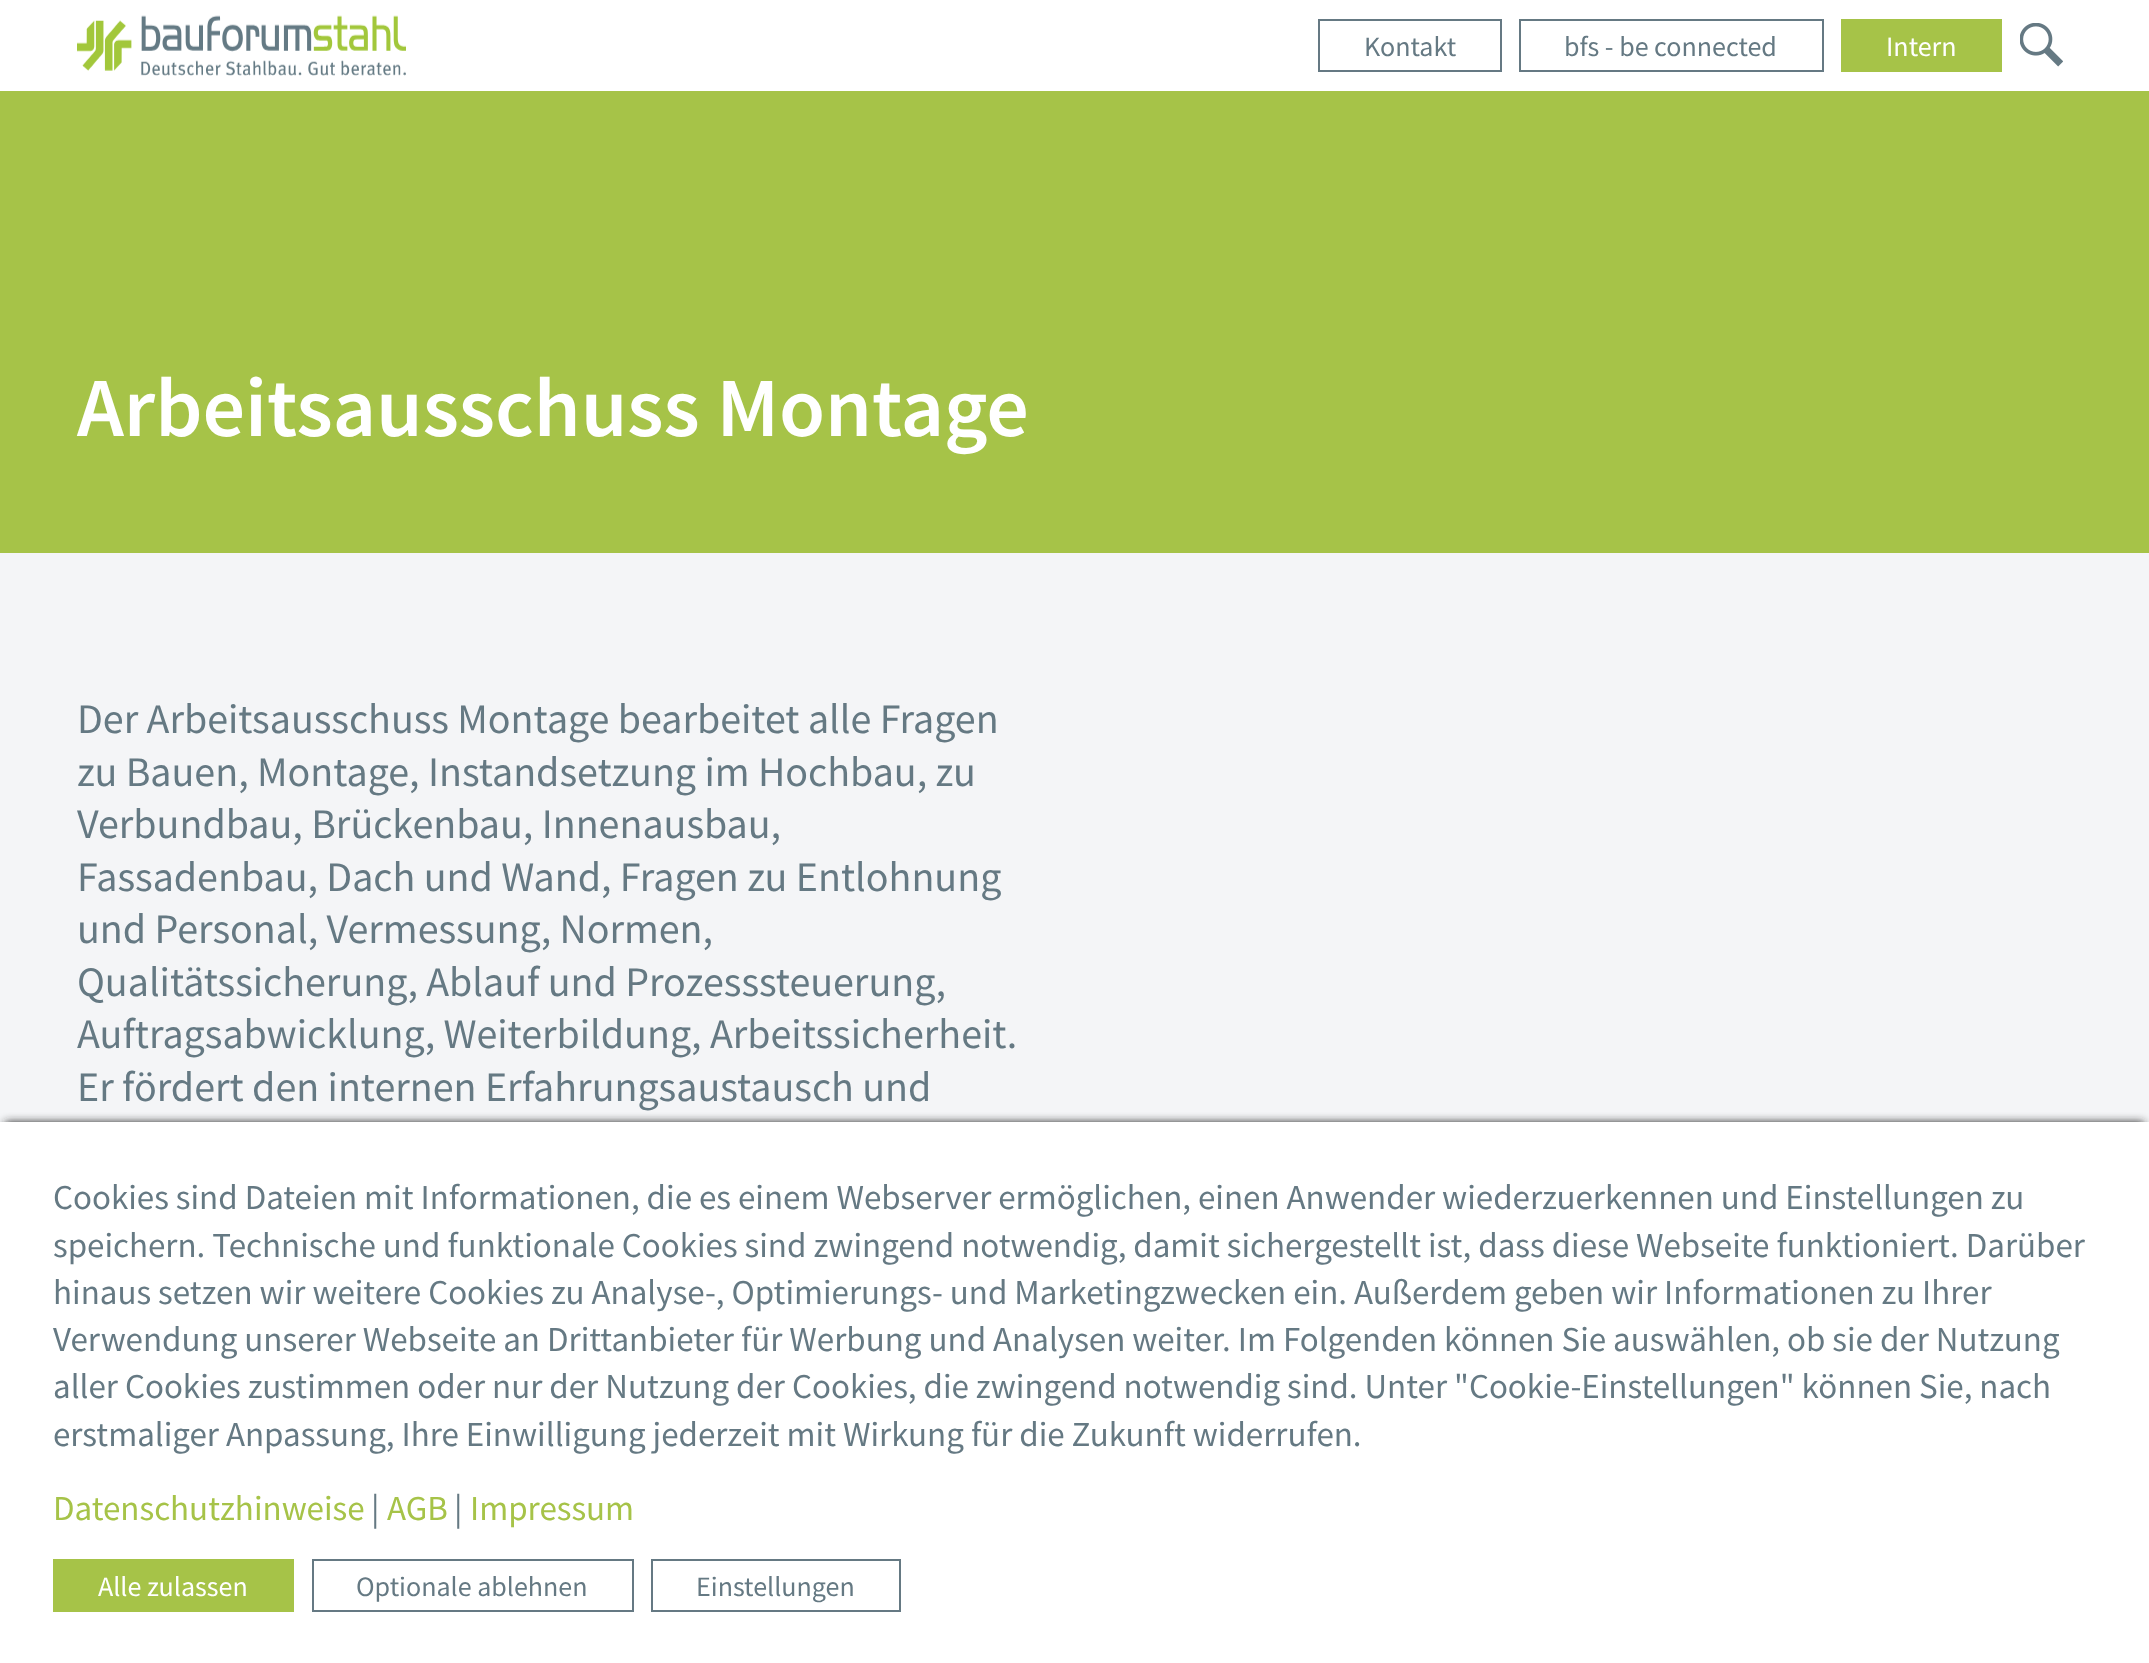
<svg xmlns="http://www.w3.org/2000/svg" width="2149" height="1663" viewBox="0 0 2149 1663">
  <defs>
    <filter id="blur1" x="-50%" y="-200%" width="200%" height="500%"><feGaussianBlur stdDeviation="4.5"/></filter>
  </defs>
  <rect width="100%" height="100%" fill="#f4f5f7"/>
  <rect x="0" y="0" width="2149" height="91" fill="#ffffff"/>
  <image x="77" y="15" width="329" height="61" href="img1.png"/>
  <rect x="1319" y="20" width="182" height="51" fill="none" stroke="#657983" stroke-width="2"/>
  <text x="1364" y="56" font-family="Source Sans Pro" font-size="28" fill="#657983">Kontakt</text>
  <rect x="1520" y="20" width="303" height="51" fill="none" stroke="#657983" stroke-width="2"/>
  <text x="1564" y="56" font-family="Source Sans Pro" font-size="28" fill="#657983">bfs - be connected</text>
  <rect x="1841" y="19" width="161" height="53" fill="#a6c348"/>
  <text x="1886" y="56" font-family="Source Sans Pro" font-size="28" fill="#ffffff">Intern</text>
  <image x="2020" y="23" width="43" height="44" href="img2.png"/>
  <rect x="0" y="91" width="2149" height="462" fill="#a6c348"/>
  <text x="77" y="436" font-family="Source Sans Pro" font-size="84" font-weight="600" fill="#ffffff">Arbeitsausschuss Montage</text>
  <text x="77" y="733" font-family="Source Sans Pro" font-size="42" fill="#657983">Der Arbeitsausschuss Montage bearbeitet alle Fragen</text>
  <text x="77" y="786" font-family="Source Sans Pro" font-size="42" fill="#657983">zu Bauen, Montage, Instandsetzung im Hochbau, zu</text>
  <text x="77" y="838" font-family="Source Sans Pro" font-size="42" fill="#657983">Verbundbau, Brückenbau, Innenausbau,</text>
  <text x="77" y="891" font-family="Source Sans Pro" font-size="42" fill="#657983">Fassadenbau, Dach und Wand, Fragen zu Entlohnung</text>
  <text x="77" y="943" font-family="Source Sans Pro" font-size="42" fill="#657983">und Personal, Vermessung, Normen,</text>
  <text x="77" y="996" font-family="Source Sans Pro" font-size="42" fill="#657983">Qualitätssicherung, Ablauf und Prozesssteuerung,</text>
  <text x="77" y="1048" font-family="Source Sans Pro" font-size="42" fill="#657983">Auftragsabwicklung, Weiterbildung, Arbeitssicherheit.</text>
  <text x="77" y="1101" font-family="Source Sans Pro" font-size="42" fill="#657983">Er fördert den internen Erfahrungsaustausch und</text>
  <rect x="5" y="1122" width="2139" height="532" fill="#282828" filter="url(#blur1)"/>
  <rect x="0" y="1122" width="2149" height="541" fill="#ffffff"/>
  <text x="53" y="1209" font-family="Source Sans Pro" font-size="35" fill="#657983">Cookies sind Dateien mit Informationen, die es einem Webserver ermöglichen, einen Anwender wiederzuerkennen und Einstellungen zu</text>
  <text x="53" y="1257" font-family="Source Sans Pro" font-size="35" fill="#657983">speichern. Technische und funktionale Cookies sind zwingend notwendig, damit sichergestellt ist, dass diese Webseite funktioniert. Darüber</text>
  <text x="53" y="1304" font-family="Source Sans Pro" font-size="35" fill="#657983">hinaus setzen wir weitere Cookies zu Analyse-, Optimierungs- und Marketingzwecken ein. Außerdem geben wir Informationen zu Ihrer</text>
  <text x="53" y="1351" font-family="Source Sans Pro" font-size="35" fill="#657983">Verwendung unserer Webseite an Drittanbieter für Werbung und Analysen weiter. Im Folgenden können Sie auswählen, ob sie der Nutzung</text>
  <text x="53" y="1398" font-family="Source Sans Pro" font-size="35" fill="#657983">aller Cookies zustimmen oder nur der Nutzung der Cookies, die zwingend notwendig sind. Unter "Cookie-Einstellungen" können Sie, nach</text>
  <text x="53" y="1446" font-family="Source Sans Pro" font-size="35" fill="#657983">erstmaliger Anpassung, Ihre Einwilligung jederzeit mit Wirkung für die Zukunft widerrufen.</text>
  <text x="53" y="1520" font-family="Source Sans Pro" font-size="35" fill="#a6c348">Datenschutzhinweise</text>
  <text x="371" y="1520" font-family="Source Sans Pro" font-size="35" fill="#657983">|</text>
  <text x="387" y="1520" font-family="Source Sans Pro" font-size="35" fill="#a6c348">AGB</text>
  <text x="454" y="1520" font-family="Source Sans Pro" font-size="35" fill="#657983">|</text>
  <text x="470" y="1520" font-family="Source Sans Pro" font-size="35" fill="#a6c348">Impressum</text>
  <rect x="53" y="1559" width="241" height="53" fill="#a6c348"/>
  <text x="98" y="1596" font-family="Source Sans Pro" font-size="28" fill="#ffffff">Alle zulassen</text>
  <rect x="313" y="1560" width="320" height="51" fill="none" stroke="#657983" stroke-width="2"/>
  <text x="356" y="1596" font-family="Source Sans Pro" font-size="28" fill="#657983">Optionale ablehnen</text>
  <rect x="652" y="1560" width="248" height="51" fill="none" stroke="#657983" stroke-width="2"/>
  <text x="696" y="1596" font-family="Source Sans Pro" font-size="28" fill="#657983">Einstellungen</text>
</svg>
